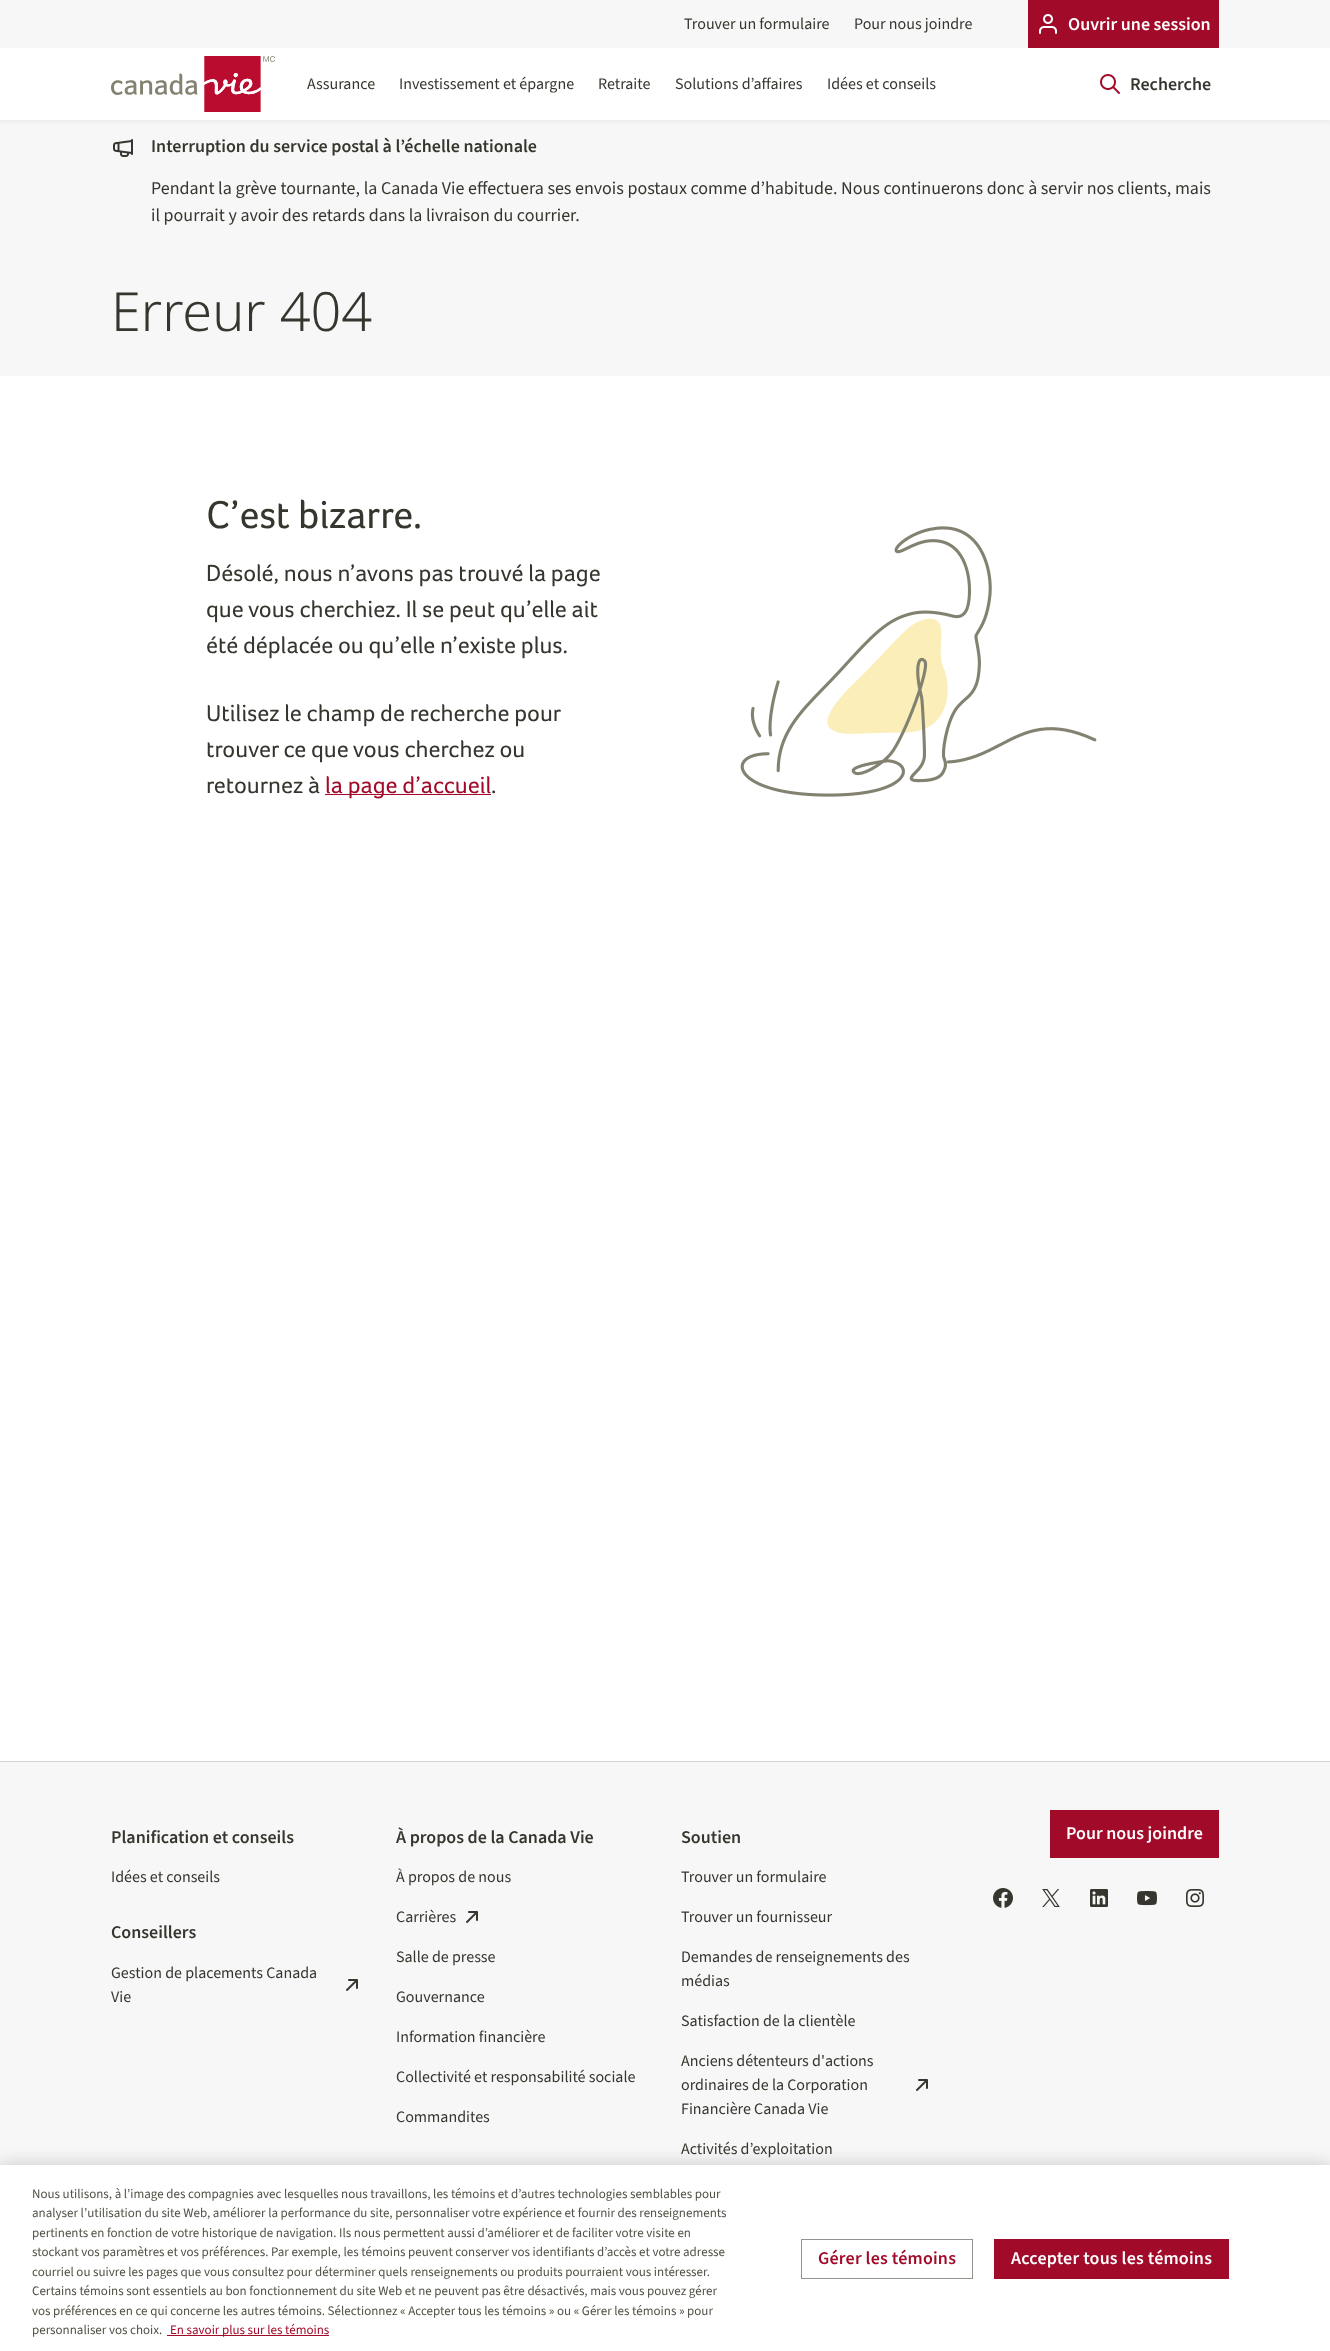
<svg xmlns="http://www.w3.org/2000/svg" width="1330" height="2351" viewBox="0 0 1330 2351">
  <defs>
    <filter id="blur1" x="-50%" y="-200%" width="200%" height="500%"><feGaussianBlur stdDeviation="2.5"/></filter>
    <filter id="blur2" x="-50%" y="-200%" width="200%" height="500%"><feGaussianBlur stdDeviation="9"/></filter>
  </defs>
  <rect width="100%" height="100%" fill="#ffffff"/>
  <rect x="0" y="0" width="1330" height="48" fill="#f7f7f7"/>
  <text x="684" y="29" font-family="'Source Sans 3'" font-size="16" fill="#36362f">Trouver un formulaire</text>
  <text x="854" y="29" font-family="'Source Sans 3'" font-size="16" fill="#36362f">Pour nous joindre</text>
  <rect x="1028" y="0" width="191" height="48" fill="#a20a29"/>
  <image x="1039" y="14" width="18" height="20" href="img1.png"/>
  <text x="1068" y="30" font-family="'Source Sans 3'" font-size="18" font-weight="600" fill="#ffffff">Ouvrir une session</text>
  <rect x="0" y="120" width="1330" height="256" fill="#f7f7f7"/>
  <rect x="-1" y="119" width="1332" height="2" fill="#93948e" fill-opacity="0.3" filter="url(#blur1)"/>
  <image x="111" y="56" width="164" height="56" href="img2.png"/>
  <text x="307" y="89" font-family="'Source Sans 3'" font-size="16" fill="#36362f">Assurance</text>
  <text x="399" y="89" font-family="'Source Sans 3'" font-size="16" fill="#36362f">Investissement et épargne</text>
  <text x="598" y="89" font-family="'Source Sans 3'" font-size="16" fill="#36362f">Retraite</text>
  <text x="675" y="89" font-family="'Source Sans 3'" font-size="16" fill="#36362f">Solutions d’affaires</text>
  <text x="827" y="89" font-family="'Source Sans 3'" font-size="16" fill="#36362f">Idées et conseils</text>
  <image x="1100" y="74" width="20" height="20" href="img3.png"/>
  <text x="1130" y="90" font-family="'Source Sans 3'" font-size="18" font-weight="600" fill="#36362f">Recherche</text>
  <rect x="0" y="116" width="1330" height="4" fill="#ffffff"/>
  <image x="113" y="139" width="20" height="18" href="img4.png"/>
  <text x="151" y="152" font-family="'Source Sans 3'" font-size="18" font-weight="600" fill="#36362f">Interruption du service postal à l’échelle nationale</text>
  <text x="151" y="194" font-family="'Source Sans 3'" font-size="18" fill="#36362f">Pendant la grève tournante, la Canada Vie effectuera ses envois postaux comme d’habitude. Nous continuerons donc à servir nos clients, mais</text>
  <text x="151" y="221" font-family="'Source Sans 3'" font-size="18" fill="#36362f">il pourrait y avoir des retards dans la livraison du courrier.</text>
  <text x="111" y="331" font-family="Noto Sans" font-size="54" font-weight="300" fill="#36362f">Erreur 404</text>
  <text x="206" y="528" font-family="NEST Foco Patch" font-size="40" fill="#36362f">C’est bizarre.</text>
  <text x="206" y="581" font-family="NEST Foco Patch" font-size="24" fill="#36362f">Désolé, nous n’avons pas trouvé la page</text>
  <text x="206" y="617" font-family="NEST Foco Patch" font-size="24" fill="#36362f">que vous cherchiez. Il se peut qu’elle ait</text>
  <text x="206" y="653" font-family="NEST Foco Patch" font-size="24" fill="#36362f">été déplacée ou qu’elle n’existe plus.</text>
  <text x="206" y="721" font-family="NEST Foco Patch" font-size="24" fill="#36362f">Utilisez le champ de recherche pour</text>
  <text x="206" y="757" font-family="NEST Foco Patch" font-size="24" fill="#36362f">trouver ce que vous cherchez ou</text>
  <text x="206" y="793" font-family="NEST Foco Patch" font-size="24" fill="#36362f">retournez à</text>
  <rect x="325" y="794" width="166" height="1" fill="#a20a29"/>
  <text x="325" y="793" font-family="NEST Foco Patch" font-size="24" fill="#a20a29">la page d’accueil</text>
  <text x="491" y="793" font-family="NEST Foco Patch" font-size="24" fill="#36362f">.</text>
  <image x="740" y="526" width="357" height="271" href="img5.png"/>
  <rect x="0" y="1761" width="1330" height="1" fill="#d2d2cf"/>
  <rect x="0" y="1762" width="1330" height="403" fill="#f7f7f7"/>
  <text x="111" y="1843" font-family="'Source Sans 3'" font-size="18" font-weight="600" fill="#36362f">Planification et conseils</text>
  <text x="111" y="1882" font-family="'Source Sans 3'" font-size="16" fill="#36362f">Idées et conseils</text>
  <text x="111" y="1938" font-family="'Source Sans 3'" font-size="18" font-weight="600" fill="#36362f">Conseillers</text>
  <text x="111" y="1978" font-family="'Source Sans 3'" font-size="16" fill="#36362f">Gestion de placements Canada</text>
  <text x="111" y="2002" font-family="'Source Sans 3'" font-size="16" fill="#36362f">Vie</text>
  <image x="346" y="1979" width="12" height="12" href="img6.png"/>
  <text x="396" y="1843" font-family="'Source Sans 3'" font-size="18" font-weight="600" fill="#36362f">À propos de la Canada Vie</text>
  <text x="396" y="1882" font-family="'Source Sans 3'" font-size="16" fill="#36362f">À propos de nous</text>
  <text x="396" y="1922" font-family="'Source Sans 3'" font-size="16" fill="#36362f">Carrières</text>
  <image x="466" y="1911" width="12" height="12" href="img6.png"/>
  <text x="396" y="1962" font-family="'Source Sans 3'" font-size="16" fill="#36362f">Salle de presse</text>
  <text x="396" y="2002" font-family="'Source Sans 3'" font-size="16" fill="#36362f">Gouvernance</text>
  <text x="396" y="2042" font-family="'Source Sans 3'" font-size="16" fill="#36362f">Information financière</text>
  <text x="396" y="2082" font-family="'Source Sans 3'" font-size="16" fill="#36362f">Collectivité et responsabilité sociale</text>
  <text x="396" y="2122" font-family="'Source Sans 3'" font-size="16" fill="#36362f">Commandites</text>
  <text x="681" y="1843" font-family="'Source Sans 3'" font-size="18" font-weight="600" fill="#36362f">Soutien</text>
  <text x="681" y="1882" font-family="'Source Sans 3'" font-size="16" fill="#36362f">Trouver un formulaire</text>
  <text x="681" y="1922" font-family="'Source Sans 3'" font-size="16" fill="#36362f">Trouver un fournisseur</text>
  <text x="681" y="1962" font-family="'Source Sans 3'" font-size="16" fill="#36362f">Demandes de renseignements des</text>
  <text x="681" y="1986" font-family="'Source Sans 3'" font-size="16" fill="#36362f">médias</text>
  <text x="681" y="2026" font-family="'Source Sans 3'" font-size="16" fill="#36362f">Satisfaction de la clientèle</text>
  <text x="681" y="2066" font-family="'Source Sans 3'" font-size="16" fill="#36362f">Anciens détenteurs d'actions</text>
  <text x="681" y="2090" font-family="'Source Sans 3'" font-size="16" fill="#36362f">ordinaires de la Corporation</text>
  <text x="681" y="2114" font-family="'Source Sans 3'" font-size="16" fill="#36362f">Financière Canada Vie</text>
  <image x="916" y="2079" width="12" height="12" href="img6.png"/>
  <text x="681" y="2154" font-family="'Source Sans 3'" font-size="16" fill="#36362f">Activités d’exploitation</text>
  <rect x="1050" y="1810" width="169" height="48" fill="#a20a29"/>
  <text x="1066" y="1839" font-family="'Source Sans 3'" font-size="18" font-weight="600" fill="#ffffff">Pour nous joindre</text>
  <image x="993" y="1888" width="20" height="20" href="img7.png"/>
  <image x="1042" y="1889" width="18" height="18" href="img8.png"/>
  <image x="1090" y="1889" width="18" height="18" href="img9.png"/>
  <image x="1137" y="1891" width="20" height="15" href="img10.png"/>
  <image x="1186" y="1889" width="18" height="18" href="img11.png"/>
  <rect x="0" y="2165" width="1330" height="186" fill="#000000" fill-opacity="0.2" filter="url(#blur2)"/>
  <rect x="0" y="2165" width="1330" height="186" fill="#ffffff"/>
  <text x="32" y="2198" font-family="'Source Sans 3'" font-size="13" fill="#525146">Nous utilisons, à l’image des compagnies avec lesquelles nous travaillons, les témoins et d’autres technologies semblables pour</text>
  <text x="32" y="2217" font-family="'Source Sans 3'" font-size="13" fill="#525146">analyser l’utilisation du site Web, améliorer la performance du site, personnaliser votre expérience et fournir des renseignements</text>
  <text x="32" y="2237" font-family="'Source Sans 3'" font-size="13" fill="#525146">pertinents en fonction de votre historique de navigation. Ils nous permettent aussi d’améliorer et de faciliter votre visite en</text>
  <text x="32" y="2256" font-family="'Source Sans 3'" font-size="13" fill="#525146">stockant vos paramètres et vos préférences. Par exemple, les témoins peuvent conserver vos identifiants d’accès et votre adresse</text>
  <text x="32" y="2276" font-family="'Source Sans 3'" font-size="13" fill="#525146">courriel ou suivre les pages que vous consultez pour déterminer quels renseignements ou produits pourraient vous intéresser.</text>
  <text x="32" y="2295" font-family="'Source Sans 3'" font-size="13" fill="#525146">Certains témoins sont essentiels au bon fonctionnement du site Web et ne peuvent pas être désactivés, mais vous pouvez gérer</text>
  <text x="32" y="2315" font-family="'Source Sans 3'" font-size="13" fill="#525146">vos préférences en ce qui concerne les autres témoins. Sélectionnez « Accepter tous les témoins » ou « Gérer les témoins » pour</text>
  <text x="32" y="2334" font-family="'Source Sans 3'" font-size="13" fill="#525146">personnaliser vos choix.</text>
  <rect x="167" y="2335" width="162" height="1" fill="#a20a29"/>
  <text x="170" y="2334" font-family="'Source Sans 3'" font-size="13" fill="#a20a29">En savoir plus sur les témoins</text>
  <rect x="801.5" y="2239.5" width="171" height="39" fill="none" stroke="#93948e"/>
  <text x="818" y="2264" font-family="'Source Sans 3'" font-size="18" font-weight="600" letter-spacing="0.2" fill="#a20a29">Gérer les témoins</text>
  <rect x="994" y="2239" width="235" height="40" fill="#a20a29"/>
  <text x="1011" y="2264" font-family="'Source Sans 3'" font-size="18" font-weight="600" letter-spacing="0.2" fill="#ffffff">Accepter tous les témoins</text>
</svg>
